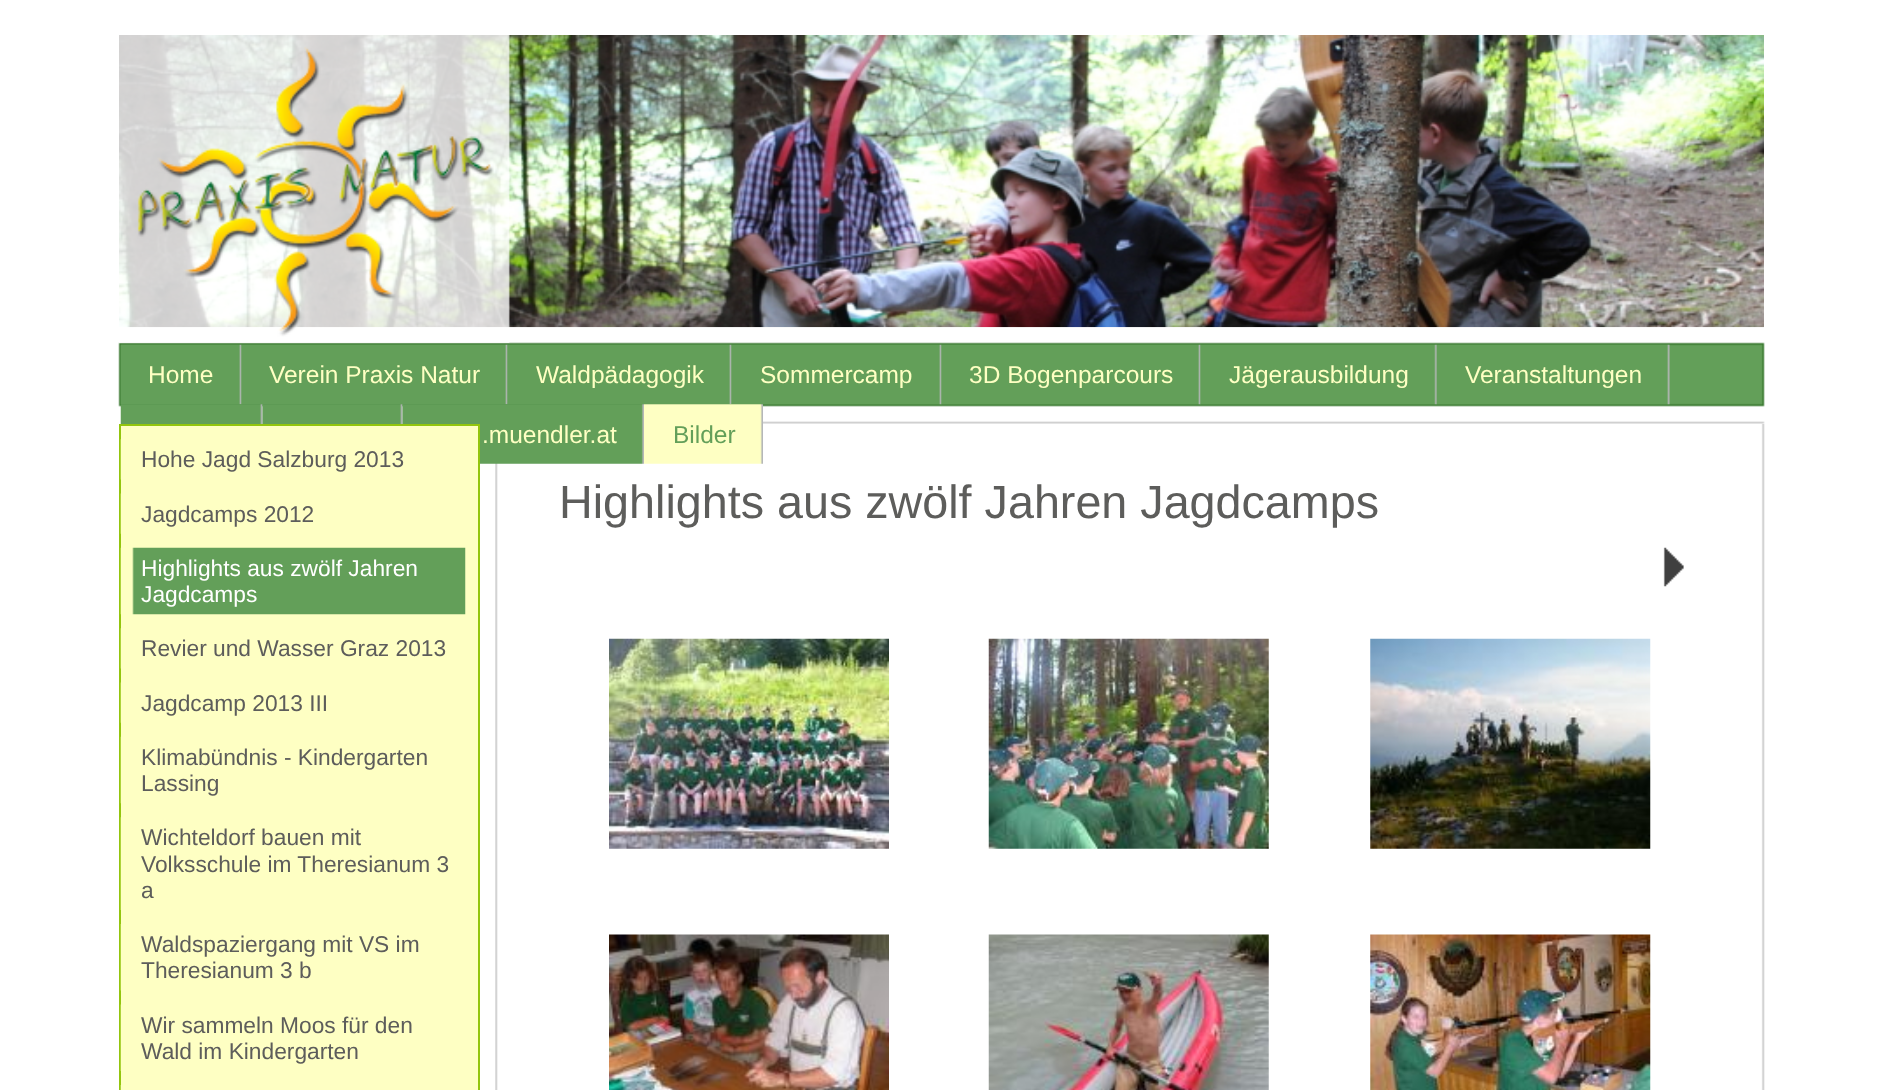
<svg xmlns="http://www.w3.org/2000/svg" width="1881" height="1090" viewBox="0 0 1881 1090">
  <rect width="100%" height="100%" fill="#ffffff"/>
  <image x="118" y="342" width="1647" height="82" href="img1.png"/>
  <image x="119" y="35" width="1645" height="293" href="img2.png"/>
  <image x="119" y="35" width="391" height="308" href="img3.png"/>
  <image x="120" y="344" width="122" height="61" href="img4.png"/>
  <text x="148" y="383" font-family="Liberation Sans" font-size="24.5" fill="#feffc3">Home</text>
  <image x="241" y="344" width="267" height="61" href="img5.png"/>
  <text x="269" y="383" font-family="Liberation Sans" font-size="24.5" fill="#feffc3">Verein Praxis Natur</text>
  <image x="507" y="344" width="225" height="61" href="img6.png"/>
  <text x="536" y="383" font-family="Liberation Sans" font-size="24.5" fill="#feffc3">Waldpädagogik</text>
  <image x="731" y="344" width="211" height="61" href="img7.png"/>
  <text x="760" y="383" font-family="Liberation Sans" font-size="24.5" fill="#feffc3">Sommercamp</text>
  <image x="941" y="344" width="260" height="61" href="img8.png"/>
  <text x="969" y="383" font-family="Liberation Sans" font-size="24.5" fill="#feffc3">3D Bogenparcours</text>
  <image x="1200" y="344" width="237" height="61" href="img9.png"/>
  <text x="1229" y="383" font-family="Liberation Sans" font-size="24.5" fill="#feffc3">Jägerausbildung</text>
  <image x="1436" y="344" width="234" height="61" href="img10.png"/>
  <text x="1465" y="383" font-family="Liberation Sans" font-size="24.5" fill="#feffc3">Veranstaltungen</text>
  <image x="120" y="404" width="143" height="20" href="img11.png"/>
  <image x="262" y="404" width="141" height="20" href="img12.png"/>
  <image x="495" y="424" width="1270" height="666" href="img15.png"/>
  <image x="402" y="404" width="242" height="60" href="img13.png"/>
  <text x="482" y="443" font-family="Liberation Sans" font-size="24.5" fill="#feffc3">.muendler.at</text>
  <image x="644" y="404" width="119" height="60" href="img14.png"/>
  <text x="673" y="443" font-family="Liberation Sans" font-size="24.5" fill="#639f59">Bilder</text>
  <rect x="120" y="425" width="359" height="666" fill="#feffc3" stroke="#93c50e" stroke-width="2"/>
  <image x="120" y="439" width="1" height="41" href="img16.png"/>
  <text x="141" y="467" font-family="Liberation Sans" font-size="22.75" fill="#5d5d5b">Hohe Jagd Salzburg 2013</text>
  <image x="120" y="493" width="1" height="41" href="img17.png"/>
  <text x="141" y="522" font-family="Liberation Sans" font-size="22.75" fill="#5d5d5b">Jagdcamps 2012</text>
  <image x="120" y="547" width="346" height="68" href="img18.png"/>
  <text x="141" y="576" font-family="Liberation Sans" font-size="22.75" fill="#ffffff">Highlights aus zwölf Jahren</text>
  <text x="141" y="602" font-family="Liberation Sans" font-size="22.75" fill="#ffffff">Jagdcamps</text>
  <image x="120" y="628" width="1" height="41" href="img16.png"/>
  <text x="141" y="656" font-family="Liberation Sans" font-size="22.75" fill="#5d5d5b">Revier und Wasser Graz 2013</text>
  <image x="120" y="682" width="1" height="41" href="img17.png"/>
  <text x="141" y="711" font-family="Liberation Sans" font-size="22.75" fill="#5d5d5b">Jagdcamp 2013 III</text>
  <image x="120" y="736" width="1" height="68" href="img19.png"/>
  <text x="141" y="765" font-family="Liberation Sans" font-size="22.75" fill="#5d5d5b">Klimabündnis - Kindergarten</text>
  <text x="141" y="791" font-family="Liberation Sans" font-size="22.75" fill="#5d5d5b">Lassing</text>
  <image x="120" y="817" width="1" height="93" href="img20.png"/>
  <text x="141" y="845" font-family="Liberation Sans" font-size="22.75" fill="#5d5d5b">Wichteldorf bauen mit</text>
  <text x="141" y="872" font-family="Liberation Sans" font-size="22.75" fill="#5d5d5b">Volksschule im Theresianum 3</text>
  <text x="141" y="898" font-family="Liberation Sans" font-size="22.75" fill="#5d5d5b">a</text>
  <image x="120" y="924" width="1" height="67" href="img21.png"/>
  <text x="141" y="952" font-family="Liberation Sans" font-size="22.75" fill="#5d5d5b">Waldspaziergang mit VS im</text>
  <text x="141" y="978" font-family="Liberation Sans" font-size="22.75" fill="#5d5d5b">Theresianum 3 b</text>
  <image x="120" y="1004" width="1" height="67" href="img22.png"/>
  <text x="141" y="1033" font-family="Liberation Sans" font-size="22.75" fill="#5d5d5b">Wir sammeln Moos für den</text>
  <text x="141" y="1059" font-family="Liberation Sans" font-size="22.75" fill="#5d5d5b">Wald im Kindergarten</text>
  <rect x="120" y="1085" width="1" height="5" fill="#aed43b"/>
  <text x="559" y="518" font-family="Liberation Sans" font-size="46.7" fill="#5d5d5b">Highlights aus zwölf Jahren Jagdcamps</text>
  <image x="1663" y="547" width="21" height="40" href="img23.png"/>
  <image x="609" y="638" width="280" height="211" href="img24.png"/>
  <image x="988" y="638" width="281" height="211" href="img25.png"/>
  <image x="1370" y="638" width="281" height="211" href="img26.png"/>
  <image x="609" y="934" width="280" height="156" href="img27.png"/>
  <image x="988" y="934" width="281" height="156" href="img28.png"/>
  <image x="1370" y="934" width="281" height="156" href="img29.png"/>
</svg>
